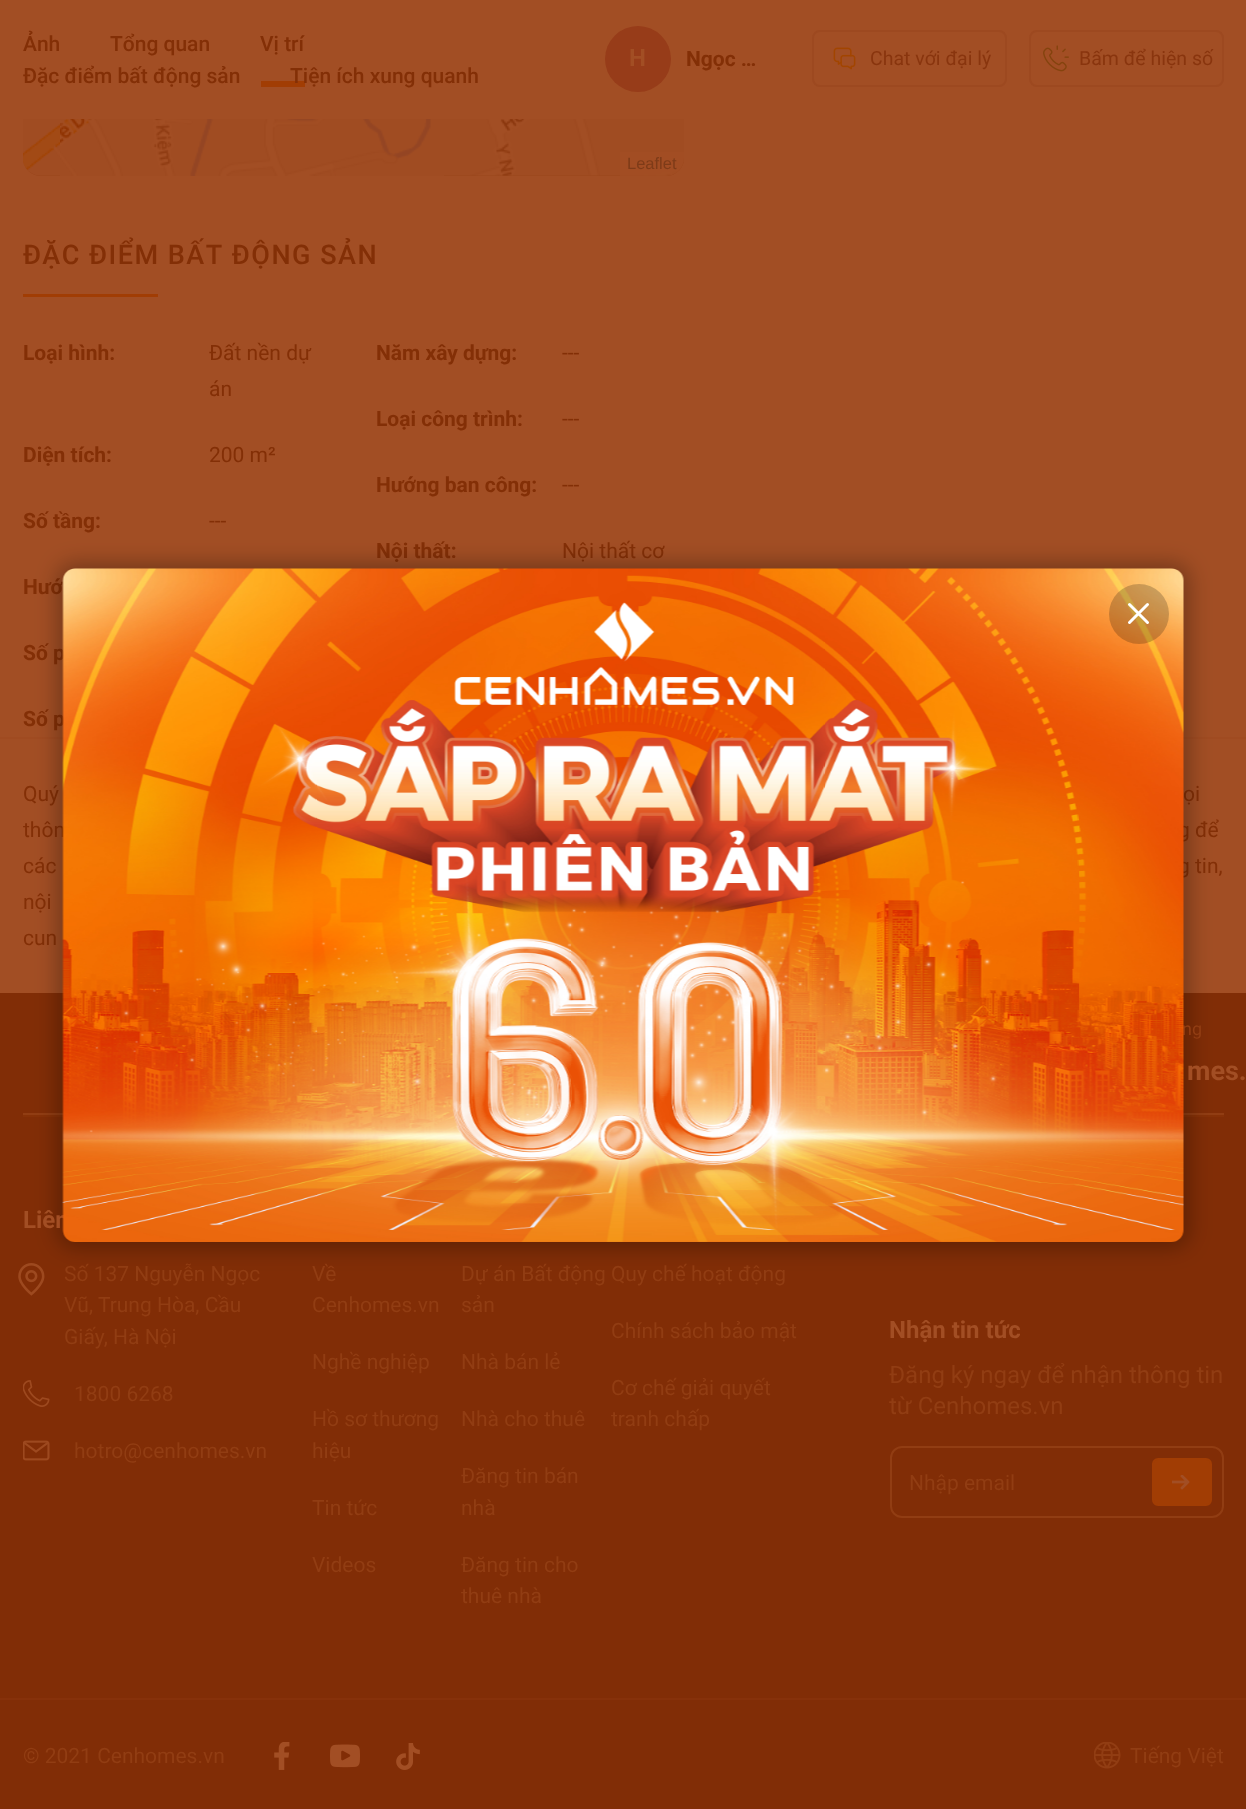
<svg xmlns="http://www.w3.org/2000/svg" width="1246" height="1809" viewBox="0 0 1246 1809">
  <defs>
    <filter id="blur1" x="-50%" y="-200%" width="200%" height="500%"><feGaussianBlur stdDeviation="10.5"/></filter>
  </defs>
  <rect width="100%" height="100%" fill="#a24e24"/>
  <rect x="23" y="-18" width="661" height="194" rx="18" fill="#9a461b"/>
  <rect x="23" y="0" width="661" height="119" fill="#a24e24"/>
  <text x="23" y="51" font-family="Roboto" font-size="21" font-weight="500" fill="#832f06">Ảnh</text>
  <text x="110" y="51" font-family="Roboto" font-size="21" font-weight="500" fill="#832f06">Tổng quan</text>
  <text x="260" y="51" font-family="Roboto" font-size="21" font-weight="500" fill="#832f06">Vị trí</text>
  <rect x="261" y="81" width="44" height="6" fill="#a13d04"/>
  <text x="23" y="83" font-family="Roboto" font-size="21" font-weight="500" fill="#832f06">Đặc điểm bất động sản</text>
  <text x="290" y="83" font-family="Roboto" font-size="21" font-weight="500" fill="#832f06">Tiện ích xung quanh</text>
  <circle cx="638" cy="59" r="33" fill="#973c19"/>
  <text x="629" y="66" font-family="Roboto" font-size="24" font-weight="bold" fill="#a24e24">H</text>
  <text x="686" y="66" font-family="Roboto" font-size="21" font-weight="bold" fill="#832f06">Ngọc …</text>
  <rect x="813" y="31" width="193" height="55" rx="7" fill="none" stroke="#9d4920" stroke-width="2"/>
  <image x="833" y="47" width="23" height="23" href="img1.png"/>
  <text x="870" y="65" font-family="Roboto" font-size="19.5" fill="#89350e">Chat với đại lý</text>
  <rect x="1030" y="31" width="193" height="55" rx="7" fill="none" stroke="#9d4920" stroke-width="2"/>
  <image x="1043" y="45" width="26" height="27" href="img2.png"/>
  <text x="1079" y="65" font-family="Roboto" font-size="19.5" fill="#89350e">Bấm để hiện số</text>
  <image x="23" y="119" width="37" height="57" href="img3.png"/>
  <image x="60" y="119" width="384" height="57" href="img4.png"/>
  <image x="444" y="119" width="240" height="57" href="img5.png"/>
  <path d="M620 152H684V158C684 168 676 176 666 176H620Z" fill="#a24e24" fill-opacity="0.7"/>
  <text x="627" y="169" font-family="Liberation Sans" font-size="16.5" fill="#7e3b18">Leaflet</text>
  <text x="23" y="264" font-family="Roboto" font-size="27" font-weight="500" letter-spacing="1.5" fill="#832f06">ĐẶC ĐIỂM BẤT ĐỘNG SẢN</text>
  <rect x="23" y="294" width="135" height="3" fill="#a13d04"/>
  <text x="23" y="360" font-family="Roboto" font-size="21" font-weight="bold" fill="#832f06">Loại hình:</text>
  <text x="209" y="360" font-family="Roboto" font-size="21" fill="#832f06">Đất nền dự</text>
  <text x="209" y="396" font-family="Roboto" font-size="21" fill="#832f06">án</text>
  <text x="23" y="462" font-family="Roboto" font-size="21" font-weight="bold" fill="#832f06">Diện tích:</text>
  <text x="209" y="462" font-family="Roboto" font-size="21" fill="#832f06">200 m²</text>
  <text x="23" y="528" font-family="Roboto" font-size="21" font-weight="bold" fill="#832f06">Số tầng:</text>
  <text x="209" y="528" font-family="Roboto" font-size="21" fill="#832f06">---</text>
  <text x="23" y="594" font-family="Roboto" font-size="21" font-weight="bold" fill="#832f06">Hướ</text>
  <text x="23" y="660" font-family="Roboto" font-size="21" font-weight="bold" fill="#832f06">Số p</text>
  <text x="23" y="726" font-family="Roboto" font-size="21" font-weight="bold" fill="#832f06">Số p</text>
  <text x="376" y="360" font-family="Roboto" font-size="21" font-weight="bold" fill="#832f06">Năm xây dựng:</text>
  <text x="562" y="360" font-family="Roboto" font-size="21" fill="#832f06">---</text>
  <text x="376" y="426" font-family="Roboto" font-size="21" font-weight="bold" fill="#832f06">Loại công trình:</text>
  <text x="562" y="426" font-family="Roboto" font-size="21" fill="#832f06">---</text>
  <text x="376" y="492" font-family="Roboto" font-size="21" font-weight="bold" fill="#832f06">Hướng ban công:</text>
  <text x="562" y="492" font-family="Roboto" font-size="21" fill="#832f06">---</text>
  <text x="376" y="558" font-family="Roboto" font-size="21" font-weight="bold" fill="#832f06">Nội thất:</text>
  <text x="562" y="558" font-family="Roboto" font-size="21" fill="#832f06">Nội thất cơ</text>
  <rect x="0" y="737" width="1246" height="2" fill="#a04b21"/>
  <text x="23" y="801" font-family="Roboto" font-size="21" fill="#832f06">Quý</text>
  <text x="1183" y="801" font-family="Roboto" font-size="21" fill="#832f06">ọi</text>
  <text x="23" y="837" font-family="Roboto" font-size="21" fill="#832f06">thôn</text>
  <text x="1178" y="837" font-family="Roboto" font-size="21" fill="#832f06">g để</text>
  <text x="23" y="873" font-family="Roboto" font-size="21" fill="#832f06">các</text>
  <text x="1178" y="873" font-family="Roboto" font-size="21" fill="#832f06">g tin,</text>
  <text x="23" y="909" font-family="Roboto" font-size="21" fill="#832f06">nội</text>
  <text x="23" y="945" font-family="Roboto" font-size="21" fill="#832f06">cun</text>
  <rect x="0" y="993" width="1246" height="816" fill="#812d06"/>
  <rect x="23" y="1113" width="1201" height="2" fill="#913d13"/>
  <rect x="23" y="1115" width="1201" height="2" fill="#863107"/>
  <image x="18" y="1263" width="27" height="33" href="img7.png"/>
  <rect x="57" y="563" width="1133" height="685" rx="18" fill="#000000" fill-opacity="0.28" filter="url(#blur1)"/>
  <text x="1182" y="1035" font-family="Roboto" font-size="18" fill="#913d13">ng</text>
  <text x="23" y="1228" font-family="Roboto" font-size="24" font-weight="bold" fill="#a24e24">Liên</text>
  <image x="62" y="568" width="1122" height="674" href="img6.png"/>
  <circle cx="1139" cy="614" r="30" fill="#000000" fill-opacity="0.2"/>
  <path d="M1147.5 604.5L1129.5 622.5M1129.5 604.5L1147.5 622.5" fill="none" stroke="#ffffff" stroke-width="3" stroke-linecap="round" stroke-linejoin="round"/>
  <text x="1187" y="1080" font-family="Roboto" font-size="27" font-weight="bold" fill="#a24e24">mes.</text>
  <text x="64" y="1281" font-family="Roboto" font-size="21" fill="#913d13">Số 137 Nguyễn Ngọc</text>
  <text x="64" y="1312" font-family="Roboto" font-size="21" fill="#913d13">Vũ, Trung Hòa, Cầu</text>
  <text x="64" y="1344" font-family="Roboto" font-size="21" fill="#913d13">Giấy, Hà Nội</text>
  <image x="23" y="1380" width="27" height="27" href="img8.png"/>
  <text x="74" y="1401" font-family="Roboto" font-size="21" fill="#913d13">1800 6268</text>
  <image x="23" y="1440" width="27" height="21" href="img9.png"/>
  <text x="74" y="1458" font-family="Roboto" font-size="21" fill="#913d13">hotro@cenhomes.vn</text>
  <text x="312" y="1281" font-family="Roboto" font-size="21" fill="#913d13">Về</text>
  <text x="312" y="1312" font-family="Roboto" font-size="21" fill="#913d13">Cenhomes.vn</text>
  <text x="312" y="1369" font-family="Roboto" font-size="21" fill="#913d13">Nghề nghiệp</text>
  <text x="312" y="1426" font-family="Roboto" font-size="21" fill="#913d13">Hồ sơ thương</text>
  <text x="312" y="1458" font-family="Roboto" font-size="21" fill="#913d13">hiệu</text>
  <text x="312" y="1515" font-family="Roboto" font-size="21" fill="#913d13">Tin tức</text>
  <text x="312" y="1572" font-family="Roboto" font-size="21" fill="#913d13">Videos</text>
  <text x="461" y="1281" font-family="Roboto" font-size="21" fill="#913d13">Dự án Bất động Quy chế hoạt động</text>
  <text x="461" y="1312" font-family="Roboto" font-size="21" fill="#913d13">sản</text>
  <text x="461" y="1369" font-family="Roboto" font-size="21" fill="#913d13">Nhà bán lẻ</text>
  <text x="461" y="1426" font-family="Roboto" font-size="21" fill="#913d13">Nhà cho thuê</text>
  <text x="461" y="1483" font-family="Roboto" font-size="21" fill="#913d13">Đăng tin bán</text>
  <text x="461" y="1515" font-family="Roboto" font-size="21" fill="#913d13">nhà</text>
  <text x="461" y="1572" font-family="Roboto" font-size="21" fill="#913d13">Đăng tin cho</text>
  <text x="461" y="1603" font-family="Roboto" font-size="21" fill="#913d13">thuê nhà</text>
  <text x="611" y="1338" font-family="Roboto" font-size="21" fill="#913d13">Chính sách bảo mật</text>
  <text x="611" y="1395" font-family="Roboto" font-size="21" fill="#913d13">Cơ chế giải quyết</text>
  <text x="611" y="1426" font-family="Roboto" font-size="21" fill="#913d13">tranh chấp</text>
  <text x="889" y="1338" font-family="Roboto" font-size="24" font-weight="bold" fill="#a24e24">Nhận tin tức</text>
  <text x="889" y="1383" font-family="Roboto" font-size="24" fill="#913d13">Đăng ký ngay để nhận thông tin</text>
  <text x="889" y="1414" font-family="Roboto" font-size="24" fill="#913d13">từ Cenhomes.vn</text>
  <rect x="891" y="1447" width="332" height="70" rx="11" fill="none" stroke="#913d13" stroke-width="2"/>
  <text x="909" y="1490" font-family="Roboto" font-size="21" fill="#913d13">Nhập email</text>
  <rect x="1153" y="1459" width="58" height="46" rx="5" fill="#a13d04" stroke="#a13d04" stroke-width="2"/>
  <image x="1172" y="1475" width="18" height="15" href="img10.png"/>
  <rect x="0" y="1698" width="1246" height="2" fill="#86310a"/>
  <text x="23" y="1763" font-family="Roboto" font-size="21" fill="#913d13">© 2021 Cenhomes.vn</text>
  <image x="274" y="1742" width="16" height="28" href="img11.png"/>
  <image x="330" y="1744" width="30" height="24" href="img12.png"/>
  <image x="396" y="1743" width="24" height="27" href="img13.png"/>
  <image x="1094" y="1742" width="27" height="27" href="img14.png"/>
  <text x="1130" y="1763" font-family="Roboto" font-size="21" fill="#913d13">Tiếng Việt</text>
</svg>
